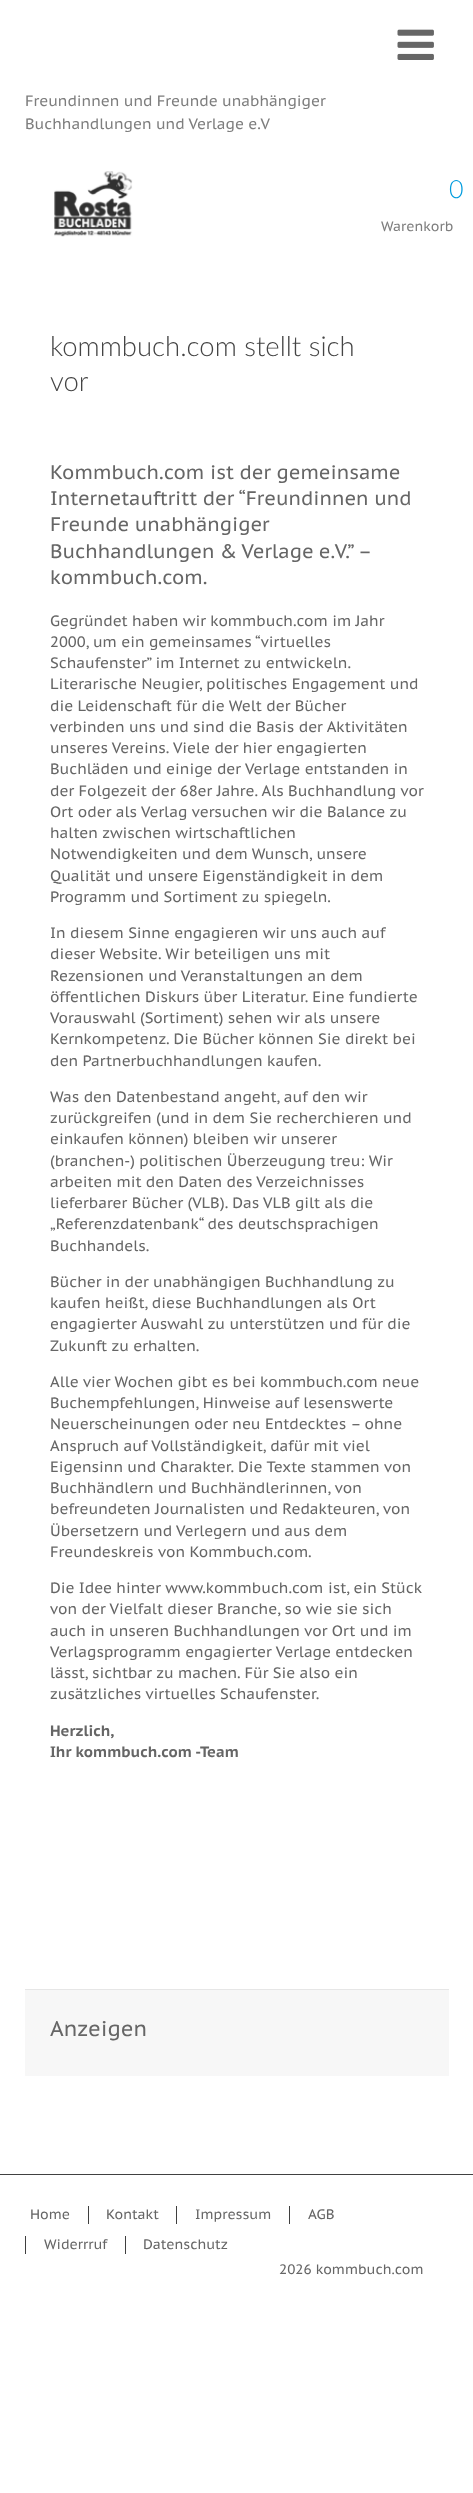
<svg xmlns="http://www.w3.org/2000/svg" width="473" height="2493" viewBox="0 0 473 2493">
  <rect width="100%" height="100%" fill="#ffffff"/>
  <image x="397" y="29" width="37" height="31" href="img1.png"/>
  <text x="25" y="106" font-family="PT Sans Caption" font-size="15" fill="#7e7e7e">Freundinnen und Freunde unabhängiger</text>
  <text x="25" y="129" font-family="PT Sans Caption" font-size="15" fill="#7e7e7e">Buchhandlungen und Verlage e.V</text>
  <image x="54" y="171" width="79" height="66" href="img2.png"/>
  <text x="449" y="198" font-family="Lato" font-size="25" font-weight="300" fill="#009cde">0</text>
  <text x="381" y="231" font-family="PT Sans Caption" font-size="13.75" fill="#7e7e7e">Warenkorb</text>
  <text x="50" y="356" font-family="Lato" font-size="27.5" font-weight="300" fill="#444444">kommbuch.com stellt sich</text>
  <text x="50" y="391" font-family="Lato" font-size="27.5" font-weight="300" fill="#444444">vor</text>
  <text x="50" y="479" font-family="PT Sans Caption" font-size="19.5" fill="#666666">Kommbuch.com ist der gemeinsame</text>
  <text x="50" y="505" font-family="PT Sans Caption" font-size="19.5" fill="#666666">Internetauftritt der “Freundinnen und</text>
  <text x="50" y="531" font-family="PT Sans Caption" font-size="19.5" fill="#666666">Freunde unabhängiger</text>
  <text x="50" y="558" word-spacing="-0.5" font-family="PT Sans Caption" font-size="19.5" fill="#666666">Buchhandlungen &amp; Verlage e.V.” –</text>
  <text x="50" y="584" font-family="PT Sans Caption" font-size="19.5" fill="#666666">kommbuch.com.</text>
  <text x="50" y="626" font-family="PT Sans Caption" font-size="15" fill="#666666">Gegründet haben wir kommbuch.com im Jahr</text>
  <text x="50" y="647" font-family="PT Sans Caption" font-size="15" fill="#666666">2000, um ein gemeinsames “virtuelles</text>
  <text x="50" y="668" font-family="PT Sans Caption" font-size="15" fill="#666666">Schaufenster” im Internet zu entwickeln.</text>
  <text x="50" y="689" font-family="PT Sans Caption" font-size="15" fill="#666666">Literarische Neugier, politisches Engagement und</text>
  <text x="50" y="711" font-family="PT Sans Caption" font-size="15" fill="#666666">die Leidenschaft für die Welt der Bücher</text>
  <text x="50" y="732" font-family="PT Sans Caption" font-size="15" fill="#666666">verbinden uns und sind die Basis der Aktivitäten</text>
  <text x="50" y="753" font-family="PT Sans Caption" font-size="15" fill="#666666">unseres Vereins. Viele der hier engagierten</text>
  <text x="50" y="774" font-family="PT Sans Caption" font-size="15" fill="#666666">Buchläden und einige der Verlage entstanden in</text>
  <text x="50" y="796" font-family="PT Sans Caption" font-size="15" fill="#666666">der Folgezeit der 68er Jahre. Als Buchhandlung vor</text>
  <text x="50" y="817" font-family="PT Sans Caption" font-size="15" fill="#666666">Ort oder als Verlag versuchen wir die Balance zu</text>
  <text x="50" y="838" font-family="PT Sans Caption" font-size="15" fill="#666666">halten zwischen wirtschaftlichen</text>
  <text x="50" y="859" font-family="PT Sans Caption" font-size="15" fill="#666666">Notwendigkeiten und dem Wunsch, unsere</text>
  <text x="50" y="881" font-family="PT Sans Caption" font-size="15" fill="#666666">Qualität und unsere Eigenständigkeit in dem</text>
  <text x="50" y="902" font-family="PT Sans Caption" font-size="15" fill="#666666">Programm und Sortiment zu spiegeln.</text>
  <text x="50" y="938" font-family="PT Sans Caption" font-size="15" fill="#666666">In diesem Sinne engagieren wir uns auch auf</text>
  <text x="50" y="959" font-family="PT Sans Caption" font-size="15" fill="#666666">dieser Website. Wir beteiligen uns mit</text>
  <text x="50" y="981" font-family="PT Sans Caption" font-size="15" fill="#666666">Rezensionen und Veranstaltungen an dem</text>
  <text x="50" y="1002" font-family="PT Sans Caption" font-size="15" fill="#666666">öffentlichen Diskurs über Literatur. Eine fundierte</text>
  <text x="50" y="1023" font-family="PT Sans Caption" font-size="15" fill="#666666">Vorauswahl (Sortiment) sehen wir als unsere</text>
  <text x="50" y="1044" font-family="PT Sans Caption" font-size="15" fill="#666666">Kernkompetenz. Die Bücher können Sie direkt bei</text>
  <text x="50" y="1066" font-family="PT Sans Caption" font-size="15" fill="#666666">den Partnerbuchhandlungen kaufen.</text>
  <text x="50" y="1102" font-family="PT Sans Caption" font-size="15" fill="#666666">Was den Datenbestand angeht, auf den wir</text>
  <text x="50" y="1123" font-family="PT Sans Caption" font-size="15" fill="#666666">zurückgreifen (und in dem Sie recherchieren und</text>
  <text x="50" y="1144" font-family="PT Sans Caption" font-size="15" fill="#666666">einkaufen können) bleiben wir unserer</text>
  <text x="50" y="1166" font-family="PT Sans Caption" font-size="15" fill="#666666">(branchen-) politischen Überzeugung treu: Wir</text>
  <text x="50" y="1187" font-family="PT Sans Caption" font-size="15" fill="#666666">arbeiten mit den Daten des Verzeichnisses</text>
  <text x="50" y="1208" font-family="PT Sans Caption" font-size="15" fill="#666666">lieferbarer Bücher (VLB</text>
  <text x="220" y="1208" font-family="PT Sans Caption" font-size="15" fill="#666666">). Das</text>
  <text x="263" y="1208" font-family="PT Sans Caption" font-size="15" fill="#666666">VLB gilt als die</text>
  <text x="50" y="1229" font-family="PT Sans Caption" font-size="15" fill="#666666">„Referenzdatenbank“ des deutschsprachigen</text>
  <text x="50" y="1251" font-family="PT Sans Caption" font-size="15" fill="#666666">Buchhandels.</text>
  <text x="50" y="1287" font-family="PT Sans Caption" font-size="15" fill="#666666">Bücher in der unabhängigen Buchhandlung zu</text>
  <text x="50" y="1308" font-family="PT Sans Caption" font-size="15" fill="#666666">kaufen heißt, diese Buchhandlungen als Ort</text>
  <text x="50" y="1329" font-family="PT Sans Caption" font-size="15" fill="#666666">engagierter Auswahl zu unterstützen und für die</text>
  <text x="50" y="1351" font-family="PT Sans Caption" font-size="15" fill="#666666">Zukunft zu erhalten.</text>
  <text x="50" y="1387" font-family="PT Sans Caption" font-size="15" fill="#666666">Alle vier Wochen gibt es bei kommbuch.com neue</text>
  <text x="50" y="1408" font-family="PT Sans Caption" font-size="15" fill="#666666">Buchempfehlungen, Hinweise auf lesenswerte</text>
  <text x="50" y="1429" font-family="PT Sans Caption" font-size="15" fill="#666666">Neuerscheinungen oder neu Entdecktes – ohne</text>
  <text x="50" y="1451" font-family="PT Sans Caption" font-size="15" fill="#666666">Anspruch auf Vollständigkeit, dafür mit viel</text>
  <text x="50" y="1472" font-family="PT Sans Caption" font-size="15" fill="#666666">Eigensinn und Charakter. Die Texte stammen von</text>
  <text x="50" y="1493" font-family="PT Sans Caption" font-size="15" fill="#666666">Buchhändlern und Buchhändlerinnen, von</text>
  <text x="50" y="1514" font-family="PT Sans Caption" font-size="15" fill="#666666">befreundeten Journalisten und Redakteuren, von</text>
  <text x="50" y="1536" font-family="PT Sans Caption" font-size="15" fill="#666666">Übersetzern und Verlegern und aus dem</text>
  <text x="50" y="1557" font-family="PT Sans Caption" font-size="15" fill="#666666">Freundeskreis von Kommbuch.com.</text>
  <text x="50" y="1593" font-family="PT Sans Caption" font-size="15" fill="#666666">Die Idee hinter www.kommbuch.com</text>
  <text x="328" y="1593" font-family="PT Sans Caption" font-size="15" fill="#666666">ist, ein Stück</text>
  <text x="50" y="1614" font-family="PT Sans Caption" font-size="15" fill="#666666">von der Vielfalt dieser Branche, so wie sie sich</text>
  <text x="50" y="1636" font-family="PT Sans Caption" font-size="15" fill="#666666">auch in unseren Buchhandlungen vor Ort und im</text>
  <text x="50" y="1657" font-family="PT Sans Caption" font-size="15" fill="#666666">Verlagsprogramm engagierter Verlage entdecken</text>
  <text x="50" y="1678" font-family="PT Sans Caption" font-size="15" fill="#666666">lässt, sichtbar zu machen. Für Sie also ein</text>
  <text x="50" y="1699" font-family="PT Sans Caption" font-size="15" fill="#666666">zusätzliches virtuelles Schaufenster.</text>
  <text x="50" y="1736" font-family="PT Sans Caption" font-size="15" font-weight="bold" fill="#666666">Herzlich,</text>
  <text x="50" y="1757" font-family="PT Sans Caption" font-size="15" font-weight="bold" fill="#666666">Ihr kommbuch.com -Team</text>
  <rect x="25" y="1990" width="424" height="86" fill="#f7f7f7"/>
  <rect x="25" y="1989" width="424" height="1" fill="#e6e6e6"/>
  <text x="50" y="2036" font-family="PT Sans Caption" font-size="21.25" fill="#666666">Anzeigen</text>
  <rect x="0" y="2174" width="473" height="1" fill="#414141"/>
  <text x="30" y="2219" font-family="PT Sans Caption" font-size="13.75" fill="#666666">Home</text>
  <rect x="88" y="2206" width="1" height="18" fill="#3f3f3f"/>
  <text x="106" y="2219" font-family="PT Sans Caption" font-size="13.75" fill="#666666">Kontakt</text>
  <rect x="176" y="2206" width="1" height="18" fill="#3f3f3f"/>
  <text x="195" y="2219" font-family="PT Sans Caption" font-size="13.75" fill="#666666">Impressum</text>
  <rect x="289" y="2206" width="1" height="18" fill="#3f3f3f"/>
  <text x="308" y="2219" font-family="PT Sans Caption" font-size="13.75" fill="#666666">AGB</text>
  <rect x="25" y="2236" width="1" height="18" fill="#3f3f3f"/>
  <text x="44" y="2249" font-family="PT Sans Caption" font-size="13.75" fill="#666666">Widerrruf</text>
  <rect x="125" y="2236" width="1" height="18" fill="#3f3f3f"/>
  <text x="143" y="2249" font-family="PT Sans Caption" font-size="13.75" fill="#666666">Datenschutz</text>
  <text x="279" y="2274" font-family="PT Sans Caption" font-size="13.75" fill="#666666">2026 kommbuch.com</text>
</svg>
